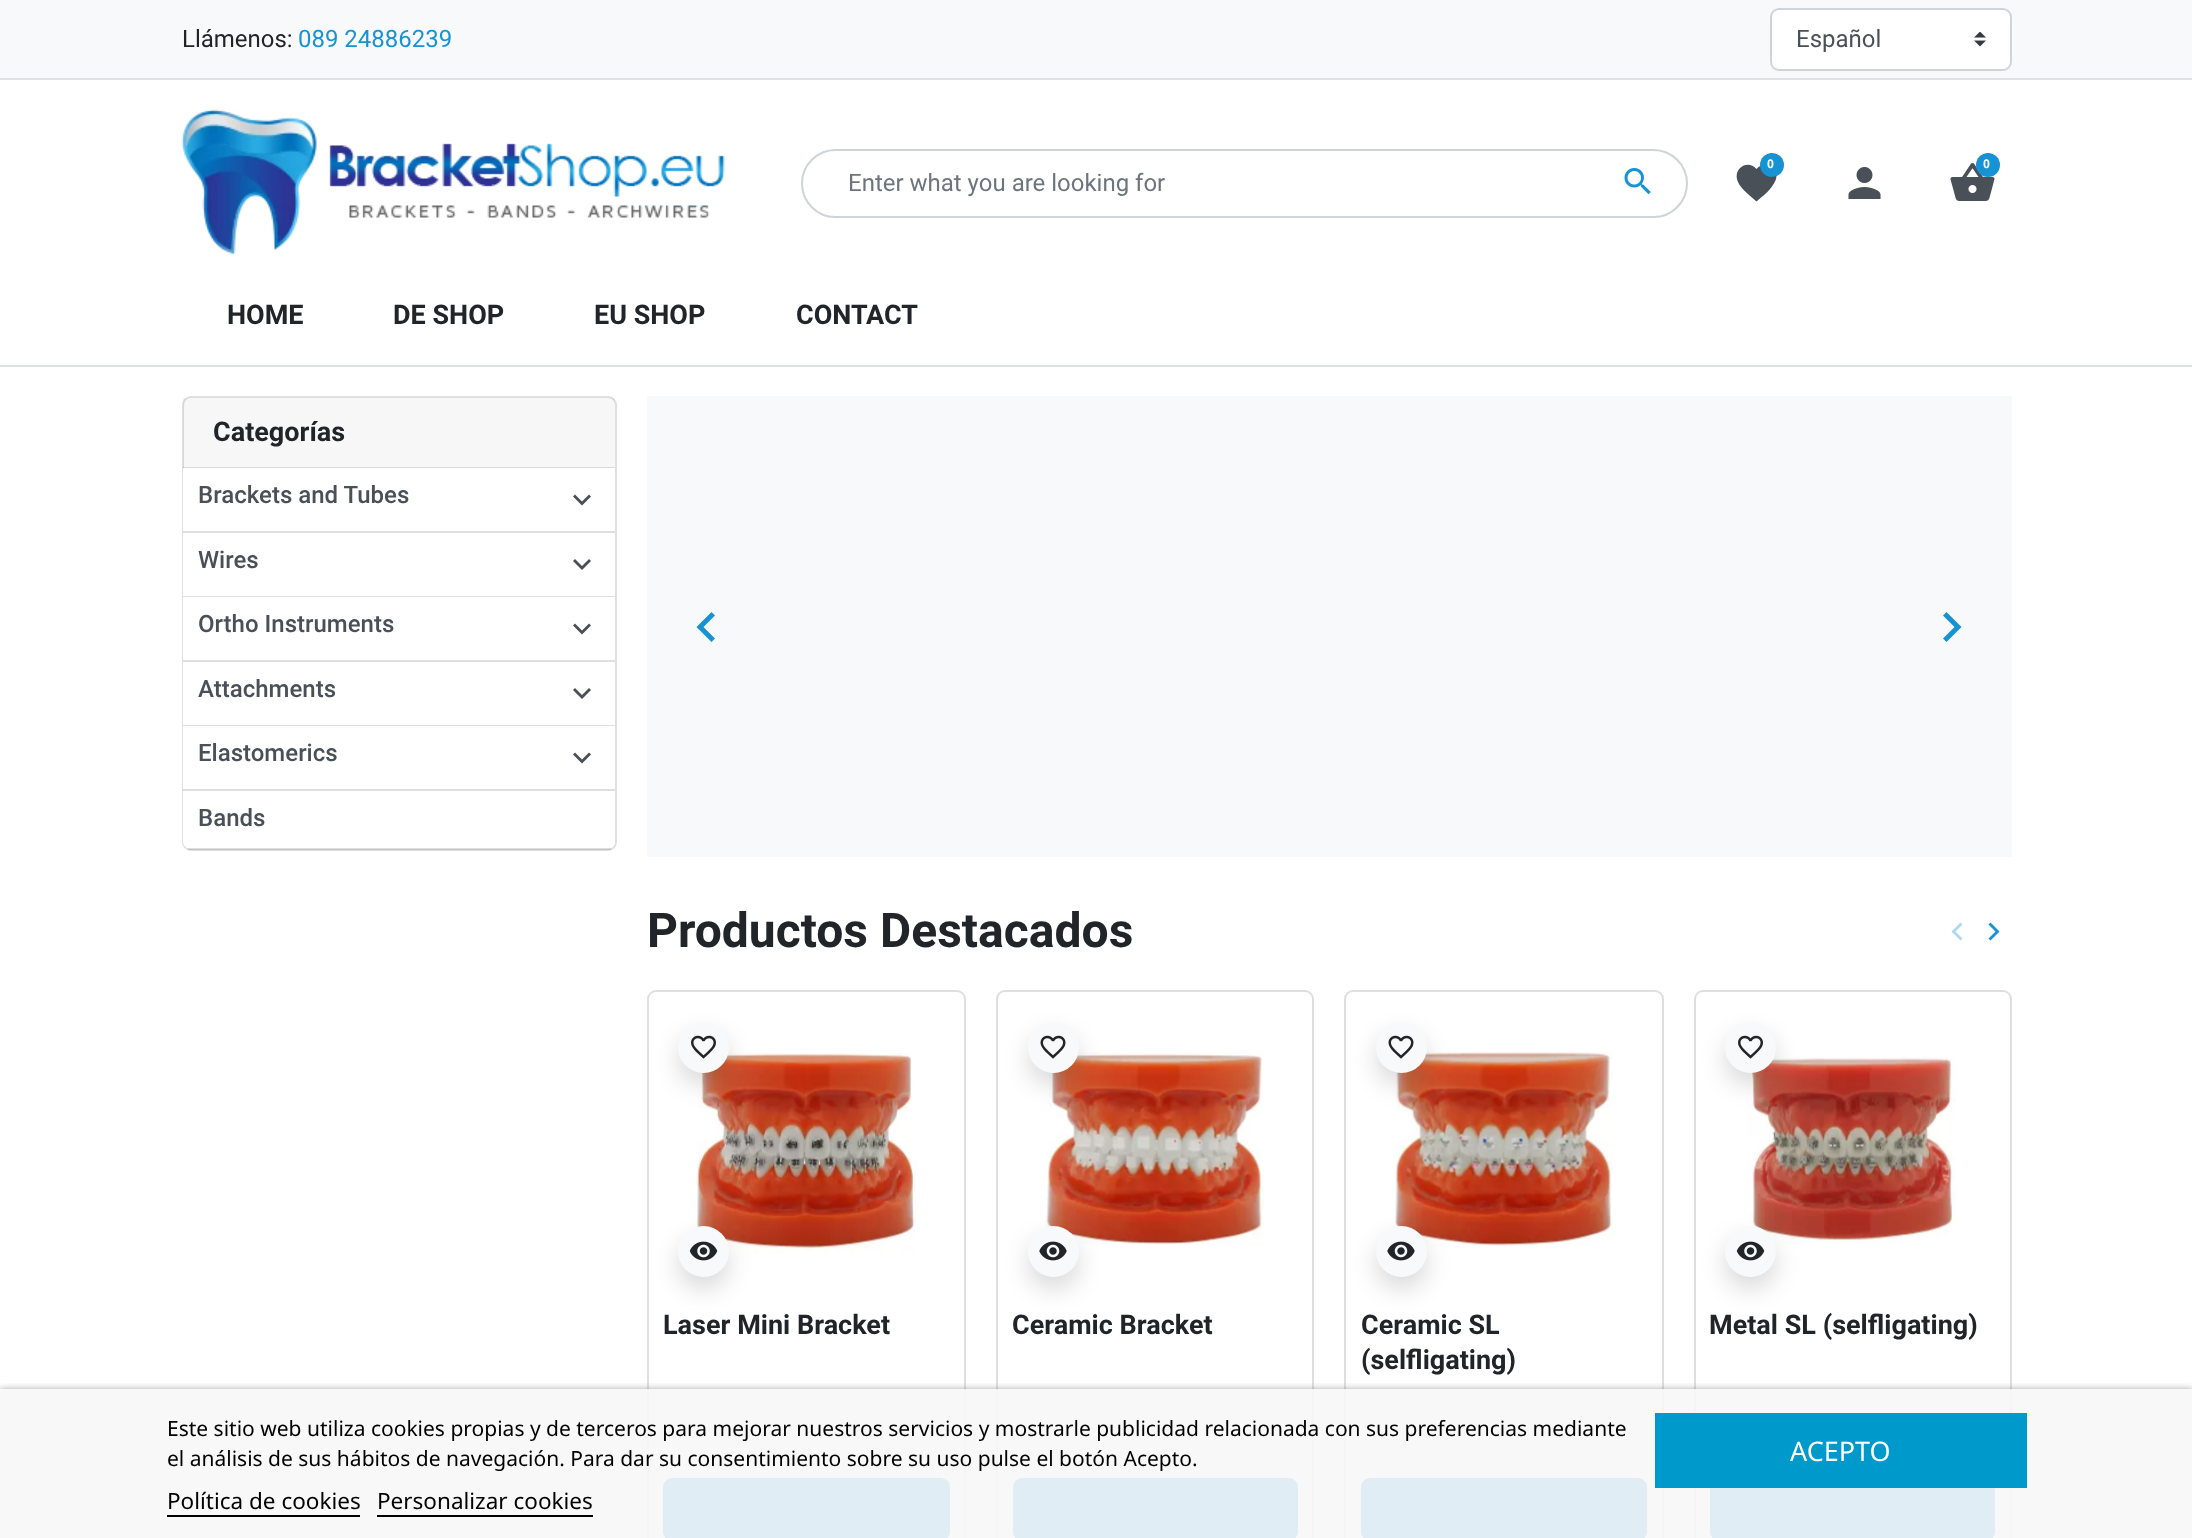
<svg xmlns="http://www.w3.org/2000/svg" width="2192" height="1538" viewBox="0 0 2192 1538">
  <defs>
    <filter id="blur1" x="-50%" y="-200%" width="200%" height="500%"><feGaussianBlur stdDeviation="12"/></filter>
    <clipPath id="clip1"><rect x="1013" y="1307" width="285" height="70"/></clipPath>
    <clipPath id="clip2"><rect x="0" y="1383" width="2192" height="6"/></clipPath>
    <filter id="blur2" x="-50%" y="-200%" width="200%" height="500%"><feGaussianBlur stdDeviation="4"/></filter>
  </defs>
  <rect width="100%" height="100%" fill="#ffffff"/>
  <rect x="0" y="0" width="2192" height="78" fill="#f8f9fa"/>
  <rect x="0" y="78" width="2192" height="2" fill="#dee2e6"/>
  <text x="182" y="47" font-family="Roboto" font-size="24" fill="#212529">Llámenos:</text>
  <text x="298" y="47" font-family="Roboto" font-size="24" fill="#1792d2">089 24886239</text>
  <rect x="1770" y="8" width="242" height="63" rx="9" fill="#ffffff"/>
  <image x="1974" y="32" width="12" height="15" href="img1.png"/>
  <rect x="1771" y="9" width="240" height="61" rx="8" fill="none" stroke="#ced4da" stroke-width="2"/>
  <text x="1796" y="47" font-family="Roboto" font-size="24" fill="#495057">Español</text>
  <rect x="0" y="365" width="2192" height="2" fill="#dee2e6"/>
  <image x="181" y="109" width="544" height="146" href="img2.png"/>
  <path d="M1756.5 201.5C1751 196.5 1741 189 1738 182C1732 169 1747.5 158.5 1756.5 169C1765 159 1780.5 168.5 1775.5 180.5C1772 189 1763 196 1756.5 201.5Z" fill="#495057"/>
  <circle cx="1772" cy="165" r="12" fill="#1792d2"/>
  <text x="1767" y="168" font-family="Roboto" font-size="12" font-weight="bold" fill="#ffffff">0</text>
  <image x="1950" y="163" width="45" height="38" href="img3.png"/>
  <circle cx="1988" cy="165" r="12" fill="#1792d2"/>
  <text x="1983" y="168" font-family="Roboto" font-size="12" font-weight="bold" fill="#ffffff">0</text>
  <rect x="802" y="150" width="885" height="67" rx="33.5" fill="none" stroke="#ced4da" stroke-width="2"/>
  <text x="848" y="191" font-family="Roboto" font-size="24" fill="#6c757d">Enter what you are looking for</text>
  <image x="1624" y="168" width="27" height="27" href="img4.png"/>
  <image x="1848" y="167" width="33" height="32" href="img5.png"/>
  <text x="227" y="324" font-family="Roboto" font-size="27" font-weight="bold" fill="#212529">HOME</text>
  <text x="393" y="324" font-family="Roboto" font-size="27" font-weight="bold" fill="#212529">DE SHOP</text>
  <text x="594" y="324" font-family="Roboto" font-size="27" font-weight="bold" fill="#212529">EU SHOP</text>
  <text x="796" y="324" font-family="Roboto" font-size="27" font-weight="bold" fill="#212529">CONTACT</text>
  <rect x="183" y="397" width="433" height="453" rx="8" fill="none" stroke="#dfdfdf" stroke-width="2"/>
  <rect x="183" y="398" width="432" height="70" fill="#000000" fill-opacity="0.03"/>
  <rect x="183" y="467" width="432" height="1" fill="#000000" fill-opacity="0.12"/>
  <text x="213" y="441" font-family="Roboto" font-size="27" font-weight="bold" fill="#212529">Categorías</text>
  <rect x="183" y="468" width="1" height="63" fill="#ffffff"/>
  <rect x="183" y="531" width="432" height="2" fill="#dfdfdf"/>
  <text x="198" y="503" font-family="Roboto" font-size="24" font-weight="500" fill="#495057">Brackets and Tubes</text>
  <path d="M575 494.5L582 501.5L589 494.5L591 496.5L582 505.5L573 496.5Z" fill="#495057"/>
  <rect x="183" y="533" width="1" height="127" fill="#ffffff"/>
  <rect x="183" y="596" width="432" height="1" fill="#000000" fill-opacity="0.12"/>
  <text x="198" y="568" font-family="Roboto" font-size="24" font-weight="500" fill="#495057">Wires</text>
  <path d="M575 559L582 566L589 559L591 561L582 570L573 561Z" fill="#495057"/>
  <rect x="183" y="660" width="432" height="2" fill="#dfdfdf"/>
  <text x="198" y="632" font-family="Roboto" font-size="24" font-weight="500" fill="#495057">Ortho Instruments</text>
  <path d="M575 623.5L582 630.5L589 623.5L591 625.5L582 634.5L573 625.5Z" fill="#495057"/>
  <rect x="183" y="662" width="1" height="127" fill="#ffffff"/>
  <rect x="183" y="725" width="432" height="1" fill="#000000" fill-opacity="0.12"/>
  <text x="198" y="697" font-family="Roboto" font-size="24" font-weight="500" fill="#495057">Attachments</text>
  <path d="M575 688L582 695L589 688L591 690L582 699L573 690Z" fill="#495057"/>
  <rect x="183" y="789" width="432" height="2" fill="#dfdfdf"/>
  <text x="198" y="761" font-family="Roboto" font-size="24" font-weight="500" fill="#495057">Elastomerics</text>
  <path d="M575 752.5L582 759.5L589 752.5L591 754.5L582 763.5L573 754.5Z" fill="#495057"/>
  <path d="M183 791H615V841C615 845.5 611.5 849 607 849H191C186.5 849 183 845.5 183 841Z" fill="#ffffff"/>
  <rect x="188" y="848" width="423" height="2" fill="#000000" fill-opacity="0.12"/>
  <text x="198" y="826" font-family="Roboto" font-size="24" font-weight="500" fill="#495057">Bands</text>
  <rect x="647" y="396" width="1365" height="461" fill="#f8f9fa"/>
  <path d="M715 638.5L711.5 642L696.5 627L711.5 612L715 615.5L703.5 627Z" fill="#1792d2"/>
  <path d="M1943 638.5L1954.5 627L1943 615.5L1946.5 612L1961.5 627L1946.5 642Z" fill="#1792d2"/>
  <text x="647" y="947" font-family="Roboto" font-size="48" font-weight="bold" fill="#212529">Productos Destacados</text>
  <path d="M1962.5 938.5L1960.5 940.5L1951.5 931.5L1960.5 922.5L1962.5 924.5L1955.5 931.5Z" fill="#aed9ef"/>
  <path d="M1988.5 938.5L1995.5 931.5L1988.5 924.5L1990.5 922.5L1999.5 931.5L1990.5 940.5Z" fill="#1792d2"/>
  <rect x="648" y="991" width="317" height="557" rx="8" fill="none" stroke="#dfdfdf" stroke-width="2"/>
  <image x="695" y="1053" width="221" height="200" href="img7.png"/>
  <rect x="678" y="1034" width="51" height="51" rx="25.5" fill="#000000" fill-opacity="0.15" filter="url(#blur1)"/>
  <circle cx="703.5" cy="1047.5" r="25.5" fill="#f8f9fa"/>
  <image x="691" y="1035" width="25" height="24" href="img6.png"/>
  <rect x="678" y="1238" width="51" height="51" rx="25.5" fill="#000000" fill-opacity="0.15" filter="url(#blur1)"/>
  <circle cx="703.5" cy="1251.5" r="25.5" fill="#f8f9fa"/>
  <image x="689" y="1241" width="29" height="20" href="img8.png"/>
  <text x="663" y="1334" font-family="Roboto" font-size="27" font-weight="bold" fill="#212529">Laser Mini Bracket</text>
  <rect x="664" y="1479" width="285" height="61" rx="8" fill="#1792d2" stroke="#1792d2" stroke-width="2"/>
  <rect x="997" y="991" width="316" height="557" rx="8" fill="none" stroke="#dfdfdf" stroke-width="2"/>
  <image x="1045" y="1052" width="219" height="193" href="img10.png"/>
  <rect x="1028" y="1034" width="51" height="51" rx="25.5" fill="#000000" fill-opacity="0.15" filter="url(#blur1)"/>
  <circle cx="1053.5" cy="1047.5" r="25.5" fill="#f8f9fa"/>
  <image x="1040" y="1035" width="26" height="24" href="img9.png"/>
  <rect x="1028" y="1238" width="51" height="51" rx="25.5" fill="#000000" fill-opacity="0.15" filter="url(#blur1)"/>
  <circle cx="1053.5" cy="1251.5" r="25.5" fill="#f8f9fa"/>
  <image x="1039" y="1241" width="28" height="20" href="img11.png"/>
  <g clip-path="url(#clip1)">
    <text x="1012" y="1334" font-family="Roboto" font-size="27" font-weight="bold" fill="#212529">Ceramic Bracket</text>
  </g>
  <rect x="1014" y="1479" width="283" height="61" rx="8" fill="#1792d2" stroke="#1792d2" stroke-width="2"/>
  <rect x="1345" y="991" width="318" height="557" rx="8" fill="none" stroke="#dfdfdf" stroke-width="2"/>
  <image x="1395" y="1051" width="218" height="196" href="img12.png"/>
  <rect x="1376" y="1034" width="51" height="51" rx="25.5" fill="#000000" fill-opacity="0.15" filter="url(#blur1)"/>
  <circle cx="1401.5" cy="1047.5" r="25.5" fill="#f8f9fa"/>
  <image x="1388" y="1035" width="26" height="24" href="img9.png"/>
  <rect x="1376" y="1238" width="51" height="51" rx="25.5" fill="#000000" fill-opacity="0.15" filter="url(#blur1)"/>
  <circle cx="1401.5" cy="1251.5" r="25.5" fill="#f8f9fa"/>
  <image x="1387" y="1241" width="28" height="20" href="img11.png"/>
  <text x="1361" y="1334" font-family="Roboto" font-size="27" font-weight="bold" fill="#212529">Ceramic SL</text>
  <text x="1361" y="1369" font-family="Roboto" font-size="27" font-weight="bold" fill="#212529">(selfligating)</text>
  <rect x="1362" y="1479" width="284" height="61" rx="8" fill="#1792d2" stroke="#1792d2" stroke-width="2"/>
  <rect x="1695" y="991" width="316" height="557" rx="8" fill="none" stroke="#dfdfdf" stroke-width="2"/>
  <image x="1746" y="1056" width="210" height="188" href="img13.png"/>
  <rect x="1725" y="1034" width="51" height="51" rx="25.5" fill="#000000" fill-opacity="0.15" filter="url(#blur1)"/>
  <circle cx="1750.5" cy="1047.5" r="25.5" fill="#f8f9fa"/>
  <image x="1738" y="1035" width="25" height="24" href="img6.png"/>
  <rect x="1725" y="1238" width="51" height="51" rx="25.5" fill="#000000" fill-opacity="0.15" filter="url(#blur1)"/>
  <circle cx="1750.5" cy="1251.5" r="25.5" fill="#f8f9fa"/>
  <image x="1736" y="1241" width="29" height="20" href="img8.png"/>
  <text x="1709" y="1334" font-family="Roboto" font-size="27" font-weight="bold" fill="#212529">Metal SL (selfligating)</text>
  <rect x="1711" y="1479" width="283" height="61" rx="8" fill="#1792d2" stroke="#1792d2" stroke-width="2"/>
  <g clip-path="url(#clip2)">
    <rect x="0" y="1391" width="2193" height="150" fill="#707070" filter="url(#blur2)"/>
  </g>
  <rect x="0" y="1389" width="2192" height="149" fill="#f7f7f7" fill-opacity="0.9"/>
  <text x="167" y="1436" font-family="Noto Sans" font-size="21" fill="#000000">Este sitio web utiliza cookies propias y de terceros para mejorar nuestros servicios y mostrarle publicidad relacionada con sus preferencias mediante</text>
  <text x="167" y="1466" font-family="Noto Sans" font-size="21" fill="#000000">el análisis de sus hábitos de navegación. Para dar su consentimiento sobre su uso pulse el botón Acepto.</text>
  <text x="167" y="1509" font-family="Noto Sans" font-size="22.5" fill="#000000">Política de cookies</text>
  <rect x="167" y="1515" width="193" height="2" fill="#000000"/>
  <text x="377" y="1509" font-family="Noto Sans" font-size="22.5" fill="#000000">Personalizar cookies</text>
  <rect x="377" y="1515" width="216" height="2" fill="#000000"/>
  <rect x="1655" y="1413" width="372" height="75" fill="#0099cc"/>
  <text x="1790" y="1461" font-family="Noto Sans" font-size="27" fill="#ffffff">ACEPTO</text>
</svg>
